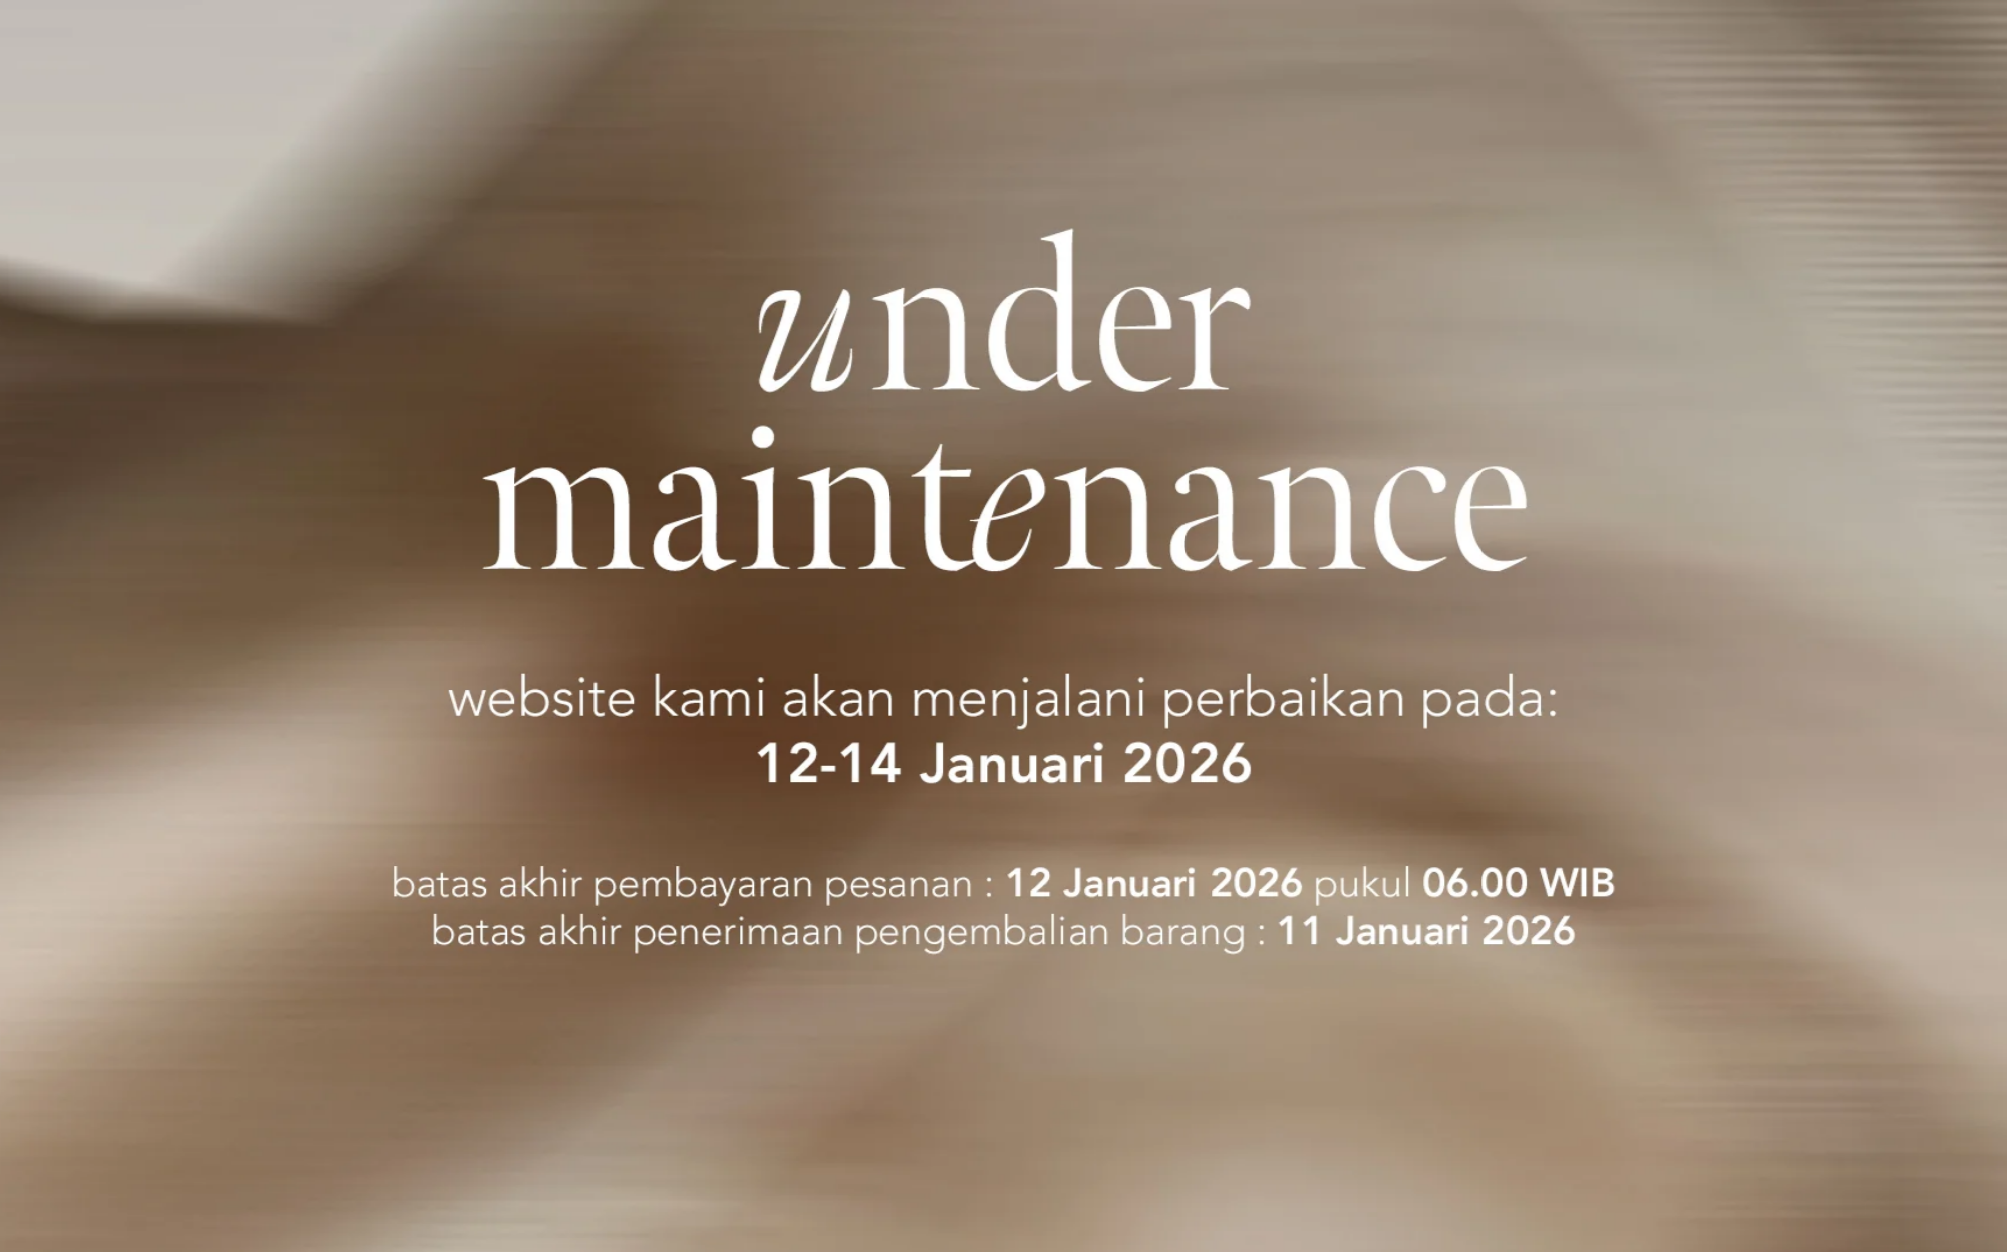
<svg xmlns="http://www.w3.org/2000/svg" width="2007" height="1252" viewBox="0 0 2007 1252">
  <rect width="100%" height="100%" fill="#ffffff"/>
  <image x="0" y="0" width="2007" height="1252" href="img1.png"/>
</svg>
